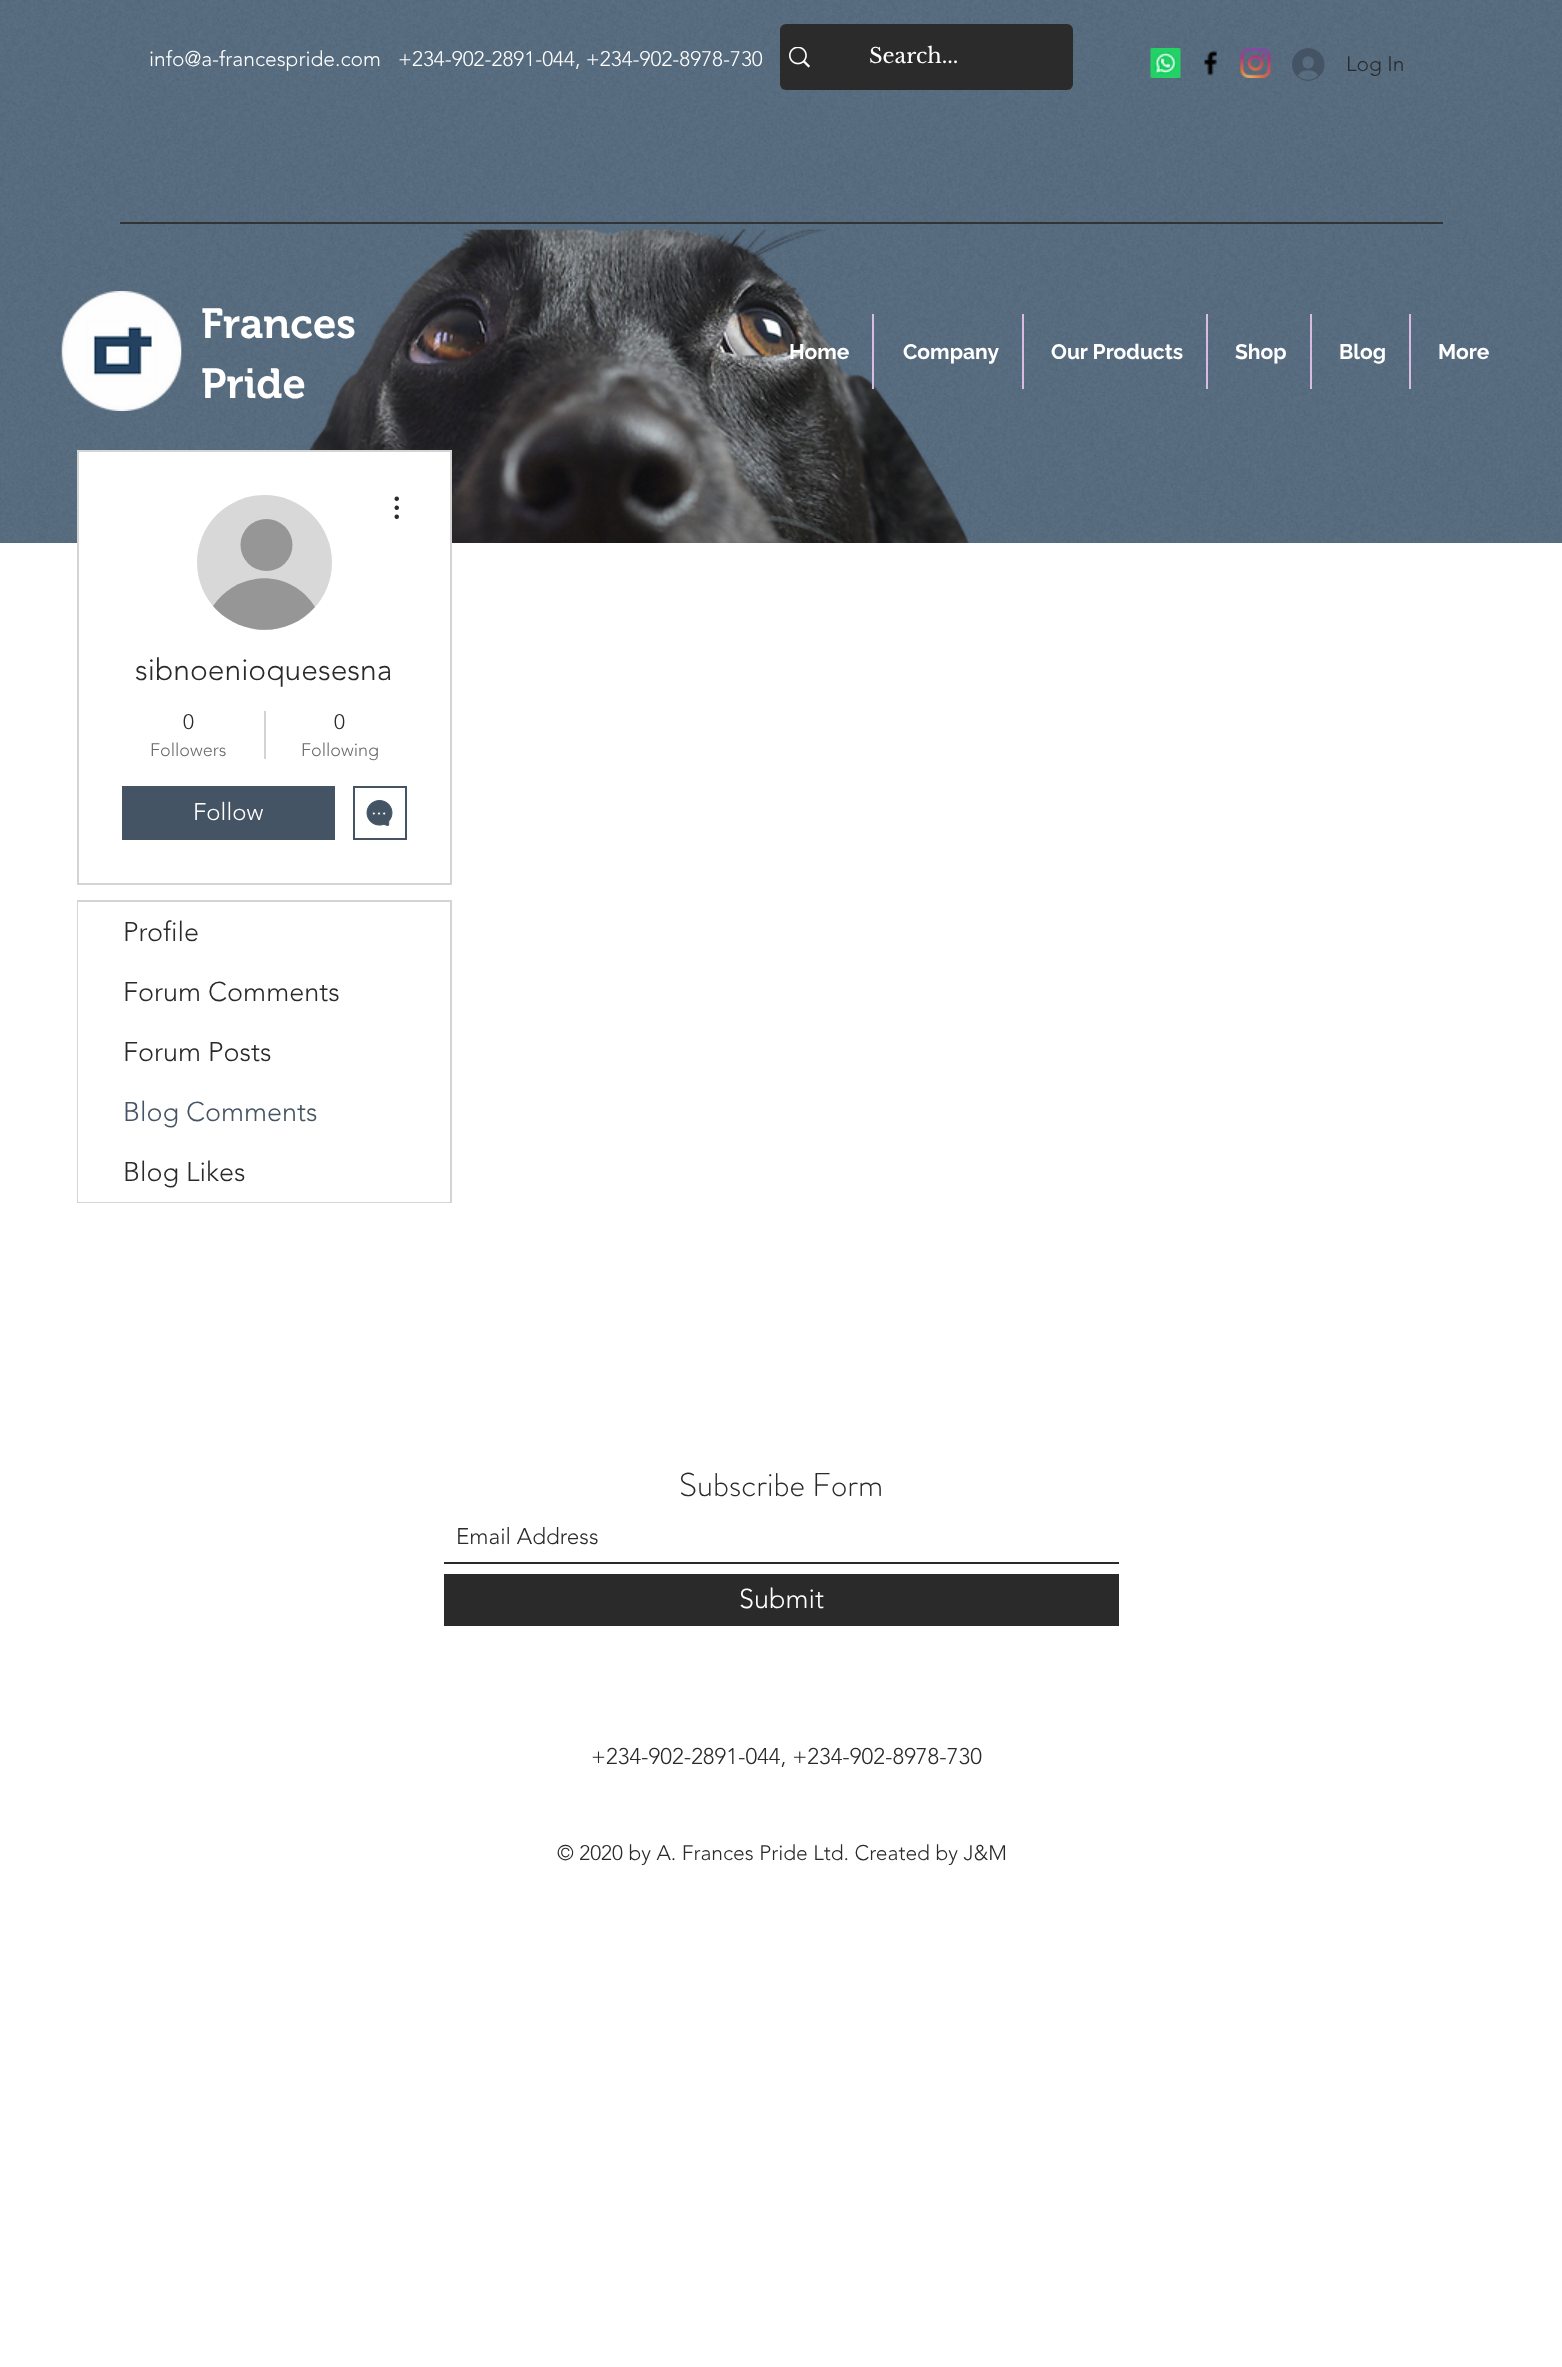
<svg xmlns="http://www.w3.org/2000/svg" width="1562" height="2367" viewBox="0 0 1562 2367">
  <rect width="100%" height="100%" fill="#ffffff"/>
  <rect x="0" y="0" width="1562" height="543" fill="#596e82"/>
  <image x="0" y="0" width="1562" height="543" href="img1.png"/>
  <text x="149" y="66" font-family="'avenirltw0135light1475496'" font-size="21" font-weight="300" fill="#ffffff">info@a-francespride.com</text>
  <text x="398" y="66" font-family="'avenirltw0135light1475496'" font-size="21" font-weight="300" fill="#ffffff">+234-902-2891-044, +234-902-8978-730</text>
  <rect x="780" y="24" width="293" height="66" rx="6" fill="#2b2b2b"/>
  <image x="789" y="47" width="21" height="21" href="img2.png"/>
  <text x="869" y="63" font-family="Libre Baskerville" font-size="21" fill="#ffffff">Search...</text>
  <image x="1150" y="48" width="31" height="30" href="img3.png"/>
  <image x="1204" y="50" width="14" height="26" href="img4.png"/>
  <image x="1240" y="48" width="31" height="30" href="img5.png"/>
  <image x="1292" y="48" width="33" height="33" href="img6.png"/>
  <text x="1346" y="71" font-family="'avenirltw0135light1475496'" font-size="21" font-weight="300" fill="#2a2a2a">Log In</text>
  <rect x="120" y="222" width="1323" height="2" fill="#2a2a2a" fill-opacity="0.85"/>
  <image x="308" y="229" width="662" height="314" href="img7.png"/>
  <image x="61" y="291" width="121" height="120" href="img8.png"/>
  <text x="201" y="338" font-family="'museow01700'" font-size="42" font-weight="600" fill="#ffffff">Frances</text>
  <text x="201" y="398" font-family="'museow01700'" font-size="42" font-weight="600" fill="#ffffff">Pride</text>
  <text x="789" y="359" font-family="Raleway" font-size="21" font-weight="bold" fill="#ffffff">Home</text>
  <rect x="872" y="314" width="2" height="75" fill="#d8bde2"/>
  <text x="903" y="359" font-family="Raleway" font-size="21" font-weight="bold" fill="#ffffff">Company</text>
  <rect x="1022" y="314" width="2" height="75" fill="#d8bde2"/>
  <text x="1051" y="359" font-family="Raleway" font-size="21" font-weight="bold" fill="#ffffff">Our Products</text>
  <rect x="1206" y="314" width="2" height="75" fill="#d8bde2"/>
  <text x="1235" y="359" font-family="Raleway" font-size="21" font-weight="bold" fill="#ffffff">Shop</text>
  <rect x="1310" y="314" width="2" height="75" fill="#d8bde2"/>
  <text x="1339" y="359" font-family="Raleway" font-size="21" font-weight="bold" fill="#ffffff">Blog</text>
  <rect x="1409" y="314" width="2" height="75" fill="#d8bde2"/>
  <text x="1438" y="359" font-family="Raleway" font-size="21" font-weight="bold" fill="#ffffff">More</text>
  <rect x="79" y="452" width="371" height="91" fill="#ffffff"/>
  <rect x="78" y="451" width="373" height="433" fill="none" stroke="#d4d4d4" stroke-width="2"/>
  <circle cx="264.5" cy="562.5" r="67.5" fill="#d8d8d8"/>
  <circle cx="266.5" cy="545" r="26" fill="#969696"/>
  <path d="M315 607C288 638 240 637 213 606C238 569 291 569 315 607Z" fill="#969696"/>
  <image x="394" y="496" width="5" height="23" href="img9.png"/>
  <text x="135" y="680" font-family="'avenirltw0135light1475496'" font-size="30" font-weight="300" fill="#2a2a2a">sibnoenioquesesna</text>
  <text x="183" y="729" font-family="'avenirltw0135light1475496'" font-size="21" font-weight="300" fill="#2a2a2a">0</text>
  <text x="150" y="756" font-family="'avenirltw0135light1475496'" font-size="18" font-weight="300" fill="#6a6a6a">Followers</text>
  <rect x="264" y="711" width="2" height="48" fill="#d4d4d4"/>
  <text x="334" y="729" font-family="'avenirltw0135light1475496'" font-size="21" font-weight="300" fill="#2a2a2a">0</text>
  <text x="301" y="756" font-family="'avenirltw0135light1475496'" font-size="18" font-weight="300" fill="#6a6a6a">Following</text>
  <rect x="122" y="786" width="213" height="54" fill="#445464"/>
  <text x="193" y="820" font-family="'avenirltw0135light1475496'" font-size="24" font-weight="300" fill="#ffffff">Follow</text>
  <rect x="354" y="787" width="52" height="52" fill="none" stroke="#445464" stroke-width="2"/>
  <image x="366" y="800" width="27" height="26" href="img10.png"/>
  <rect x="78" y="901" width="373" height="301" fill="none" stroke="#d4d4d4" stroke-width="2"/>
  <rect x="78" y="902" width="1" height="240" fill="#ffffff"/>
  <text x="123" y="941" font-family="'avenirltw0135light1475496'" font-size="27" font-weight="300" fill="#2a2a2a">Profile</text>
  <text x="123" y="1001" font-family="'avenirltw0135light1475496'" font-size="27" font-weight="300" fill="#2a2a2a">Forum Comments</text>
  <text x="123" y="1061" font-family="'avenirltw0135light1475496'" font-size="27" font-weight="300" fill="#2a2a2a">Forum Posts</text>
  <text x="123" y="1121" font-family="'avenirltw0135light1475496'" font-size="27" font-weight="300" fill="#445464">Blog Comments</text>
  <rect x="78" y="1142" width="372" height="60" fill="#ffffff"/>
  <text x="123" y="1181" font-family="'avenirltw0135light1475496'" font-size="27" font-weight="300" fill="#2a2a2a">Blog Likes</text>
  <text x="679" y="1496" font-family="'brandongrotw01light'" font-size="33" font-weight="300" fill="#2a2a2a">Subscribe Form</text>
  <rect x="444" y="1562" width="675" height="2" fill="#2a2a2a"/>
  <text x="456" y="1544" font-family="'avenirltw0135light1475496'" font-size="22.5" font-weight="300" fill="#2a2a2a">Email Address</text>
  <rect x="444" y="1574" width="675" height="52" fill="#2a2a2a"/>
  <text x="739" y="1608" font-family="'avenirltw0135light1475496'" font-size="27" font-weight="300" fill="#ffffff">Submit</text>
  <text x="591" y="1764" font-family="'avenirltw0135light1475496'" font-size="22.5" font-weight="300" fill="#2a2a2a">+234-902-2891-044, +234-902-8978-730</text>
  <text x="557" y="1860" font-family="'avenirltw0135light1475496'" font-size="21" font-weight="300" fill="#2a2a2a">© 2020 by A. Frances Pride Ltd. Created by J&amp;M</text>
</svg>
